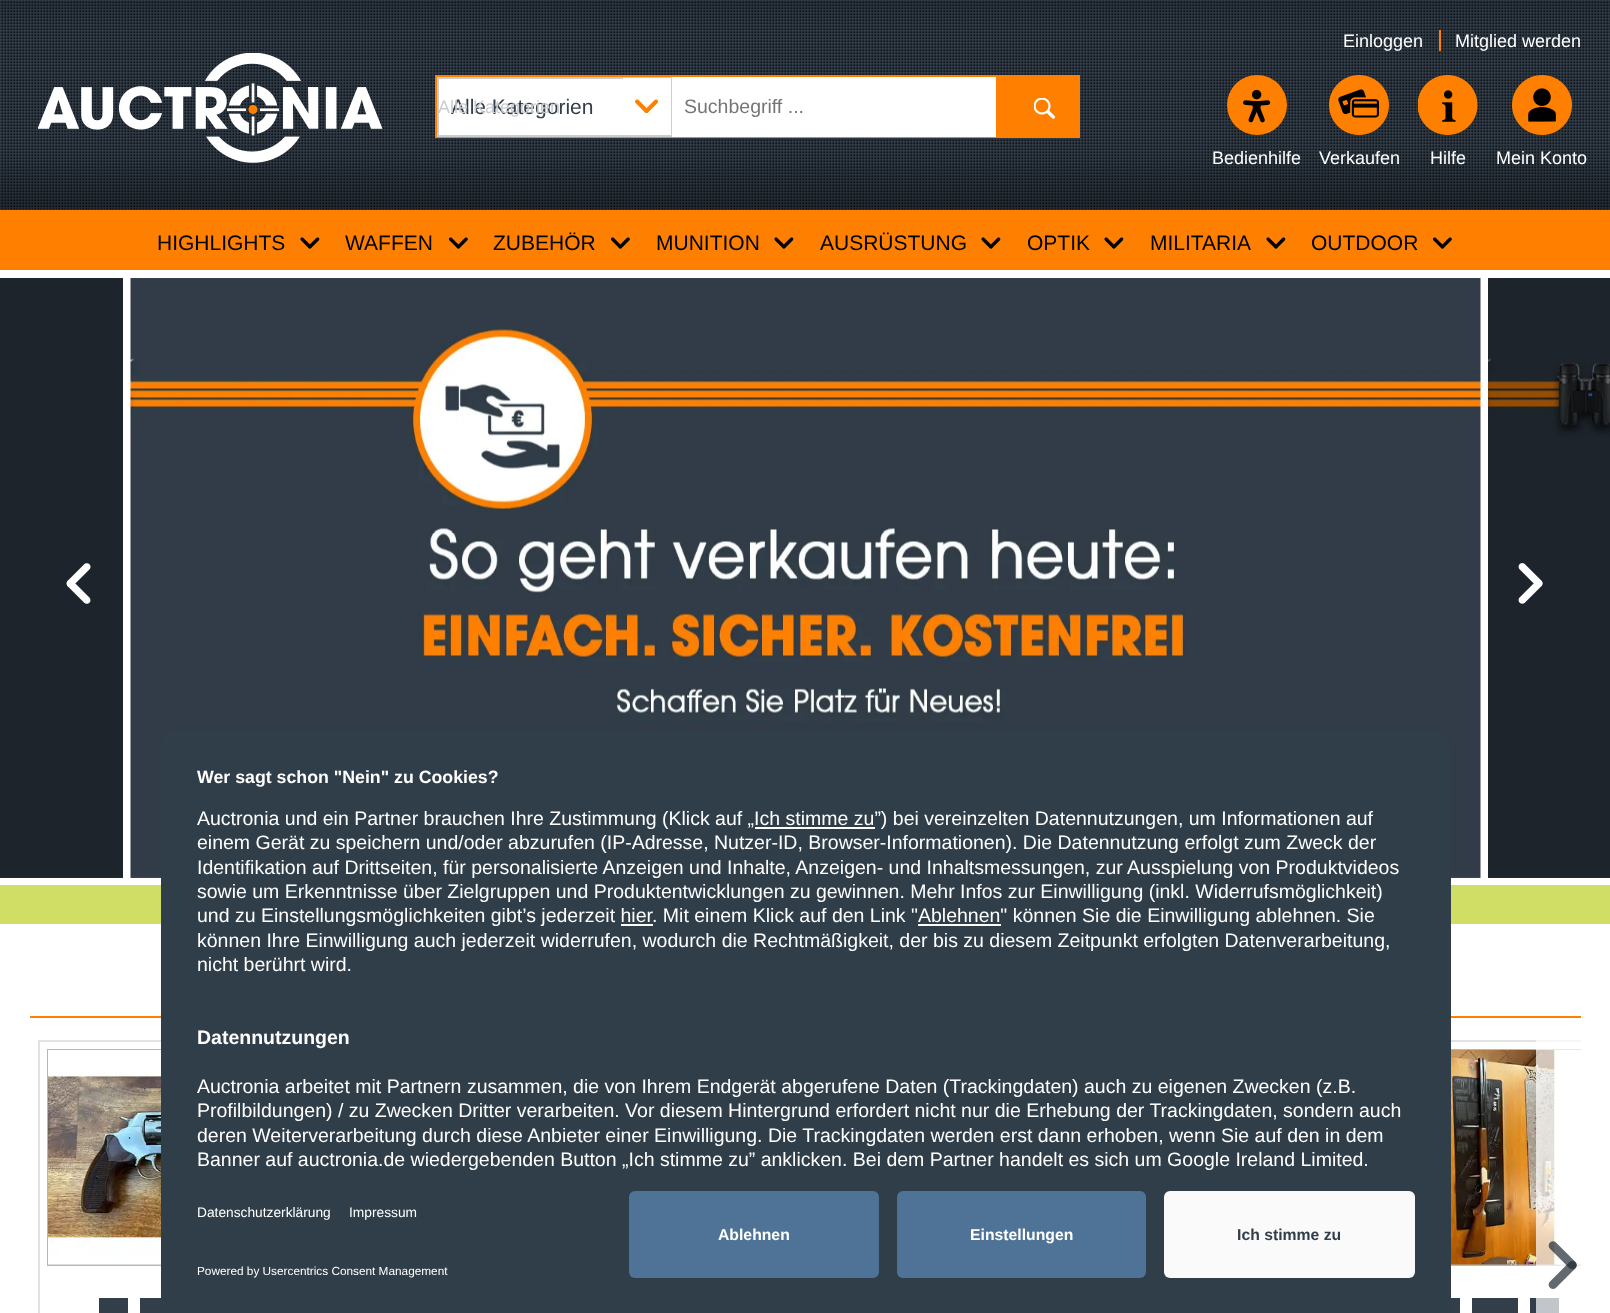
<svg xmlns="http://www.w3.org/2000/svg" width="1610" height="1313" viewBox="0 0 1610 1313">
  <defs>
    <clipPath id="clip1"><rect x="30" y="1032" width="1551" height="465"/></clipPath>
    <clipPath id="clip2"><path d="M173 731H1439C1445.5 731 1451 736.5 1451 743V1179H161V743C161 736.5 166.5 731 173 731Z"/></clipPath>
  </defs>
  <rect width="100%" height="100%" fill="#ffffff"/>
  <image x="0" y="0" width="1610" height="210" href="img1.png"/>
  <text x="1343" y="47" font-family="Liberation Sans" font-size="18" fill="#ffffff">Einloggen</text>
  <rect x="1439" y="30" width="2" height="21" fill="#ff8000"/>
  <text x="1455" y="47" font-family="Liberation Sans" font-size="18" fill="#ffffff">Mitglied werden</text>
  <circle cx="1257" cy="105" r="30" fill="#ff8000"/>
  <image x="1243" y="89" width="28" height="34" href="img2.png"/>
  <text x="1212" y="164" font-family="Liberation Sans" font-size="18" fill="#ffffff">Bedienhilfe</text>
  <image x="1329" y="75" width="60" height="60" href="img3.png"/>
  <text x="1319" y="164" font-family="Liberation Sans" font-size="18" fill="#ffffff">Verkaufen</text>
  <image x="1418" y="75" width="60" height="60" href="img4.png"/>
  <text x="1430" y="164" font-family="Liberation Sans" font-size="18" fill="#ffffff">Hilfe</text>
  <image x="1512" y="75" width="60" height="60" href="img5.png"/>
  <text x="1496" y="164" font-family="Liberation Sans" font-size="18" fill="#ffffff">Mein Konto</text>
  <rect x="0" y="210" width="1610" height="60" fill="#ff8000"/>
  <text x="157" y="250" font-family="Liberation Sans" font-size="21" fill="#000000">HIGHLIGHTS</text>
  <image x="300" y="237" width="20" height="12" href="img6.png"/>
  <text x="345" y="250" font-family="Liberation Sans" font-size="21" fill="#000000">WAFFEN</text>
  <image x="449" y="237" width="19" height="12" href="img7.png"/>
  <text x="493" y="250" font-family="Liberation Sans" font-size="21" fill="#000000">ZUBEHÖR</text>
  <image x="611" y="237" width="19" height="12" href="img7.png"/>
  <text x="656" y="250" font-family="Liberation Sans" font-size="21" fill="#000000">MUNITION</text>
  <image x="774" y="237" width="20" height="12" href="img6.png"/>
  <text x="820" y="250" font-family="Liberation Sans" font-size="21" fill="#000000">AUSRÜSTUNG</text>
  <image x="981" y="237" width="20" height="12" href="img6.png"/>
  <text x="1027" y="250" font-family="Liberation Sans" font-size="21" fill="#000000">OPTIK</text>
  <image x="1104" y="237" width="20" height="12" href="img6.png"/>
  <text x="1150" y="250" font-family="Liberation Sans" font-size="21" fill="#000000">MILITARIA</text>
  <image x="1266" y="237" width="20" height="12" href="img6.png"/>
  <text x="1311" y="250" font-family="Liberation Sans" font-size="21" fill="#000000">OUTDOOR</text>
  <image x="1433" y="237" width="19" height="12" href="img7.png"/>
  <image x="38" y="53" width="345" height="110" href="img8.png"/>
  <rect x="436" y="76" width="643" height="61" fill="none" stroke="#ff8000" stroke-width="2"/>
  <rect x="439" y="77" width="557" height="60" fill="#ffffff"/>
  <rect x="438" y="78" width="233" height="58" fill="none" stroke="#cecdcd" stroke-width="2"/>
  <text x="451" y="114" font-family="Liberation Sans" font-size="21" fill="#323e4a">Alle Kategorien</text>
  <image x="635" y="99" width="23" height="14" href="img9.png"/>
  <rect x="623" y="78" width="36" height="1" fill="#ffffff"/>
  <rect x="659" y="78" width="12" height="57" fill="#ffffff"/>
  <text x="438" y="113" font-family="Liberation Sans" font-size="18" fill="#cacdd0">Alle Kategorien</text>
  <text x="684" y="113" font-family="Liberation Sans" font-size="19.5" fill="#757575">Suchbegriff ...</text>
  <rect x="996" y="77" width="82" height="59" fill="#ff8000"/>
  <image x="1034" y="98" width="21" height="21" href="img10.png"/>
  <image x="0" y="278" width="123" height="600" href="img11.png"/>
  <image x="130" y="278" width="1351" height="600" href="img12.png"/>
  <image x="1488" y="278" width="122" height="600" href="img13.png"/>
  <image x="66" y="563" width="25" height="41" href="img14.png"/>
  <image x="1518" y="563" width="25" height="41" href="img15.png"/>
  <rect x="0" y="885" width="1610" height="39" fill="#d0de66"/>
  <rect x="30" y="1016" width="1551" height="2" fill="#ff8000"/>
  <rect x="39" y="1041" width="304" height="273" fill="none" stroke="#e2e2e2" stroke-width="2"/>
  <rect x="48" y="1050" width="286" height="215" fill="none" stroke="#b7b7b7" stroke-width="2"/>
  <g clip-path="url(#clip1)">
    <rect x="1323" y="1041" width="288" height="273" fill="none" stroke="#e2e2e2" stroke-width="2"/>
    <rect x="1332" y="1050" width="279" height="215" fill="none" stroke="#b7b7b7" stroke-width="2"/>
  </g>
  <g clip-path="url(#clip2)">
    <rect x="161" y="732" width="1290" height="447" fill="#303e49"/>
  </g>
  <text x="197" y="783" font-family="Liberation Sans" font-size="17.75" font-weight="bold" fill="#ffffff">Wer sagt schon "Nein" zu Cookies?</text>
  <text x="197" y="825" font-family="Liberation Sans" font-size="19.5" fill="#ffffff">Auctronia und ein Partner brauchen Ihre Zustimmung (Klick auf „Ich stimme zu”) bei vereinzelten Datennutzungen, um Informationen auf</text>
  <rect x="755" y="827" width="120" height="2" fill="#ffffff"/>
  <text x="197" y="849" font-family="Liberation Sans" font-size="19.5" fill="#ffffff">einem Gerät zu speichern und/oder abzurufen (IP-Adresse, Nutzer-ID, Browser-Informationen). Die Datennutzung erfolgt zum Zweck der</text>
  <text x="197" y="874" font-family="Liberation Sans" font-size="19.5" fill="#ffffff">Identifikation auf Drittseiten, für personalisierte Anzeigen und Inhalte, Anzeigen- und Inhaltsmessungen, zur Ausspielung von Produktvideos</text>
  <text x="197" y="898" font-family="Liberation Sans" font-size="19.5" fill="#ffffff">sowie um Erkenntnisse über Zielgruppen und Produktentwicklungen zu gewinnen. Mehr Infos zur Einwilligung (inkl. Widerrufsmöglichkeit)</text>
  <text x="197" y="922" font-family="Liberation Sans" font-size="19.5" fill="#ffffff">und zu Einstellungsmöglichkeiten gibt’s jederzeit hier</text>
  <text x="652" y="922" font-family="Liberation Sans" font-size="19.5" fill="#ffffff">. Mit einem Klick auf den Link "Ablehnen" können Sie die Einwilligung ablehnen. Sie</text>
  <rect x="621" y="924" width="32" height="2" fill="#ffffff"/>
  <rect x="918" y="924" width="83" height="2" fill="#ffffff"/>
  <text x="197" y="947" font-family="Liberation Sans" font-size="19.5" fill="#ffffff">können Ihre Einwilligung auch jederzeit widerrufen, wodurch die Rechtmäßigkeit, der bis zu diesem Zeitpunkt erfolgten Datenverarbeitung,</text>
  <text x="197" y="971" font-family="Liberation Sans" font-size="19.5" fill="#ffffff">nicht berührt wird.</text>
  <text x="197" y="1044" font-family="Liberation Sans" font-size="19.5" font-weight="bold" fill="#ffffff">Datennutzungen</text>
  <text x="197" y="1093" font-family="Liberation Sans" font-size="19.5" fill="#ffffff">Auctronia arbeitet mit Partnern zusammen, die von Ihrem Endgerät abgerufene Daten (Trackingdaten) auch zu eigenen Zwecken (z.B.</text>
  <text x="197" y="1117" font-family="Liberation Sans" font-size="19.5" fill="#ffffff">Profilbildungen) / zu Zwecken Dritter verarbeiten. Vor diesem Hintergrund erfordert nicht nur die Erhebung der Trackingdaten, sondern auch</text>
  <text x="197" y="1142" font-family="Liberation Sans" font-size="19.5" fill="#ffffff">deren Weiterverarbeitung durch diese Anbieter einer Einwilligung. Die Trackingdaten werden erst dann erhoben, wenn Sie auf den in dem</text>
  <text x="197" y="1166" font-family="Liberation Sans" font-size="19.5" fill="#ffffff">Banner auf auctronia.de wiedergebenden Button „Ich stimme zu” anklicken. Bei dem Partner handelt es sich um Google Ireland Limited.</text>
  <rect x="161" y="1179" width="1290" height="134" fill="#303e49"/>
  <text x="197" y="1217" font-family="Liberation Sans" font-size="13.75" fill="#ffffff">Datenschutzerklärung</text>
  <text x="349" y="1217" font-family="Liberation Sans" font-size="13.75" fill="#ffffff">Impressum</text>
  <text x="197" y="1275" font-family="Liberation Sans" font-size="11.8" fill="#ffffff">Powered by Usercentrics Consent Management</text>
  <rect x="629" y="1191" width="250" height="87" rx="6" fill="#4f7396"/>
  <text x="718" y="1240" font-family="Liberation Sans" font-size="15.75" font-weight="bold" fill="#ffffff">Ablehnen</text>
  <rect x="897" y="1191" width="249" height="87" rx="6" fill="#4f7396"/>
  <text x="970" y="1240" font-family="Liberation Sans" font-size="15.75" font-weight="bold" fill="#ffffff">Einstellungen</text>
  <rect x="1164" y="1191" width="251" height="87" rx="6" fill="#fafafa"/>
  <text x="1237" y="1240" font-family="Liberation Sans" font-size="15.75" font-weight="bold" fill="#323e4a">Ich stimme zu</text>
  <image x="48" y="1050" width="113" height="215" href="img16.png"/>
  <rect x="99" y="1298" width="29" height="15" fill="#323e4a"/>
  <rect x="140" y="1298" width="21" height="15" fill="#323e4a"/>
  <image x="1451" y="1050" width="130" height="215" href="img17.png"/>
  <rect x="1451" y="1298" width="9" height="15" fill="#323e4a"/>
  <rect x="1472" y="1298" width="46" height="15" fill="#323e4a"/>
  <rect x="1530" y="1298" width="29" height="15" fill="#323e4a"/>
  <rect x="1536" y="1040" width="45" height="273" fill="#ffffff" fill-opacity="0.7"/>
  <image x="1548" y="1241" width="29" height="48" href="img18.png"/>
</svg>
